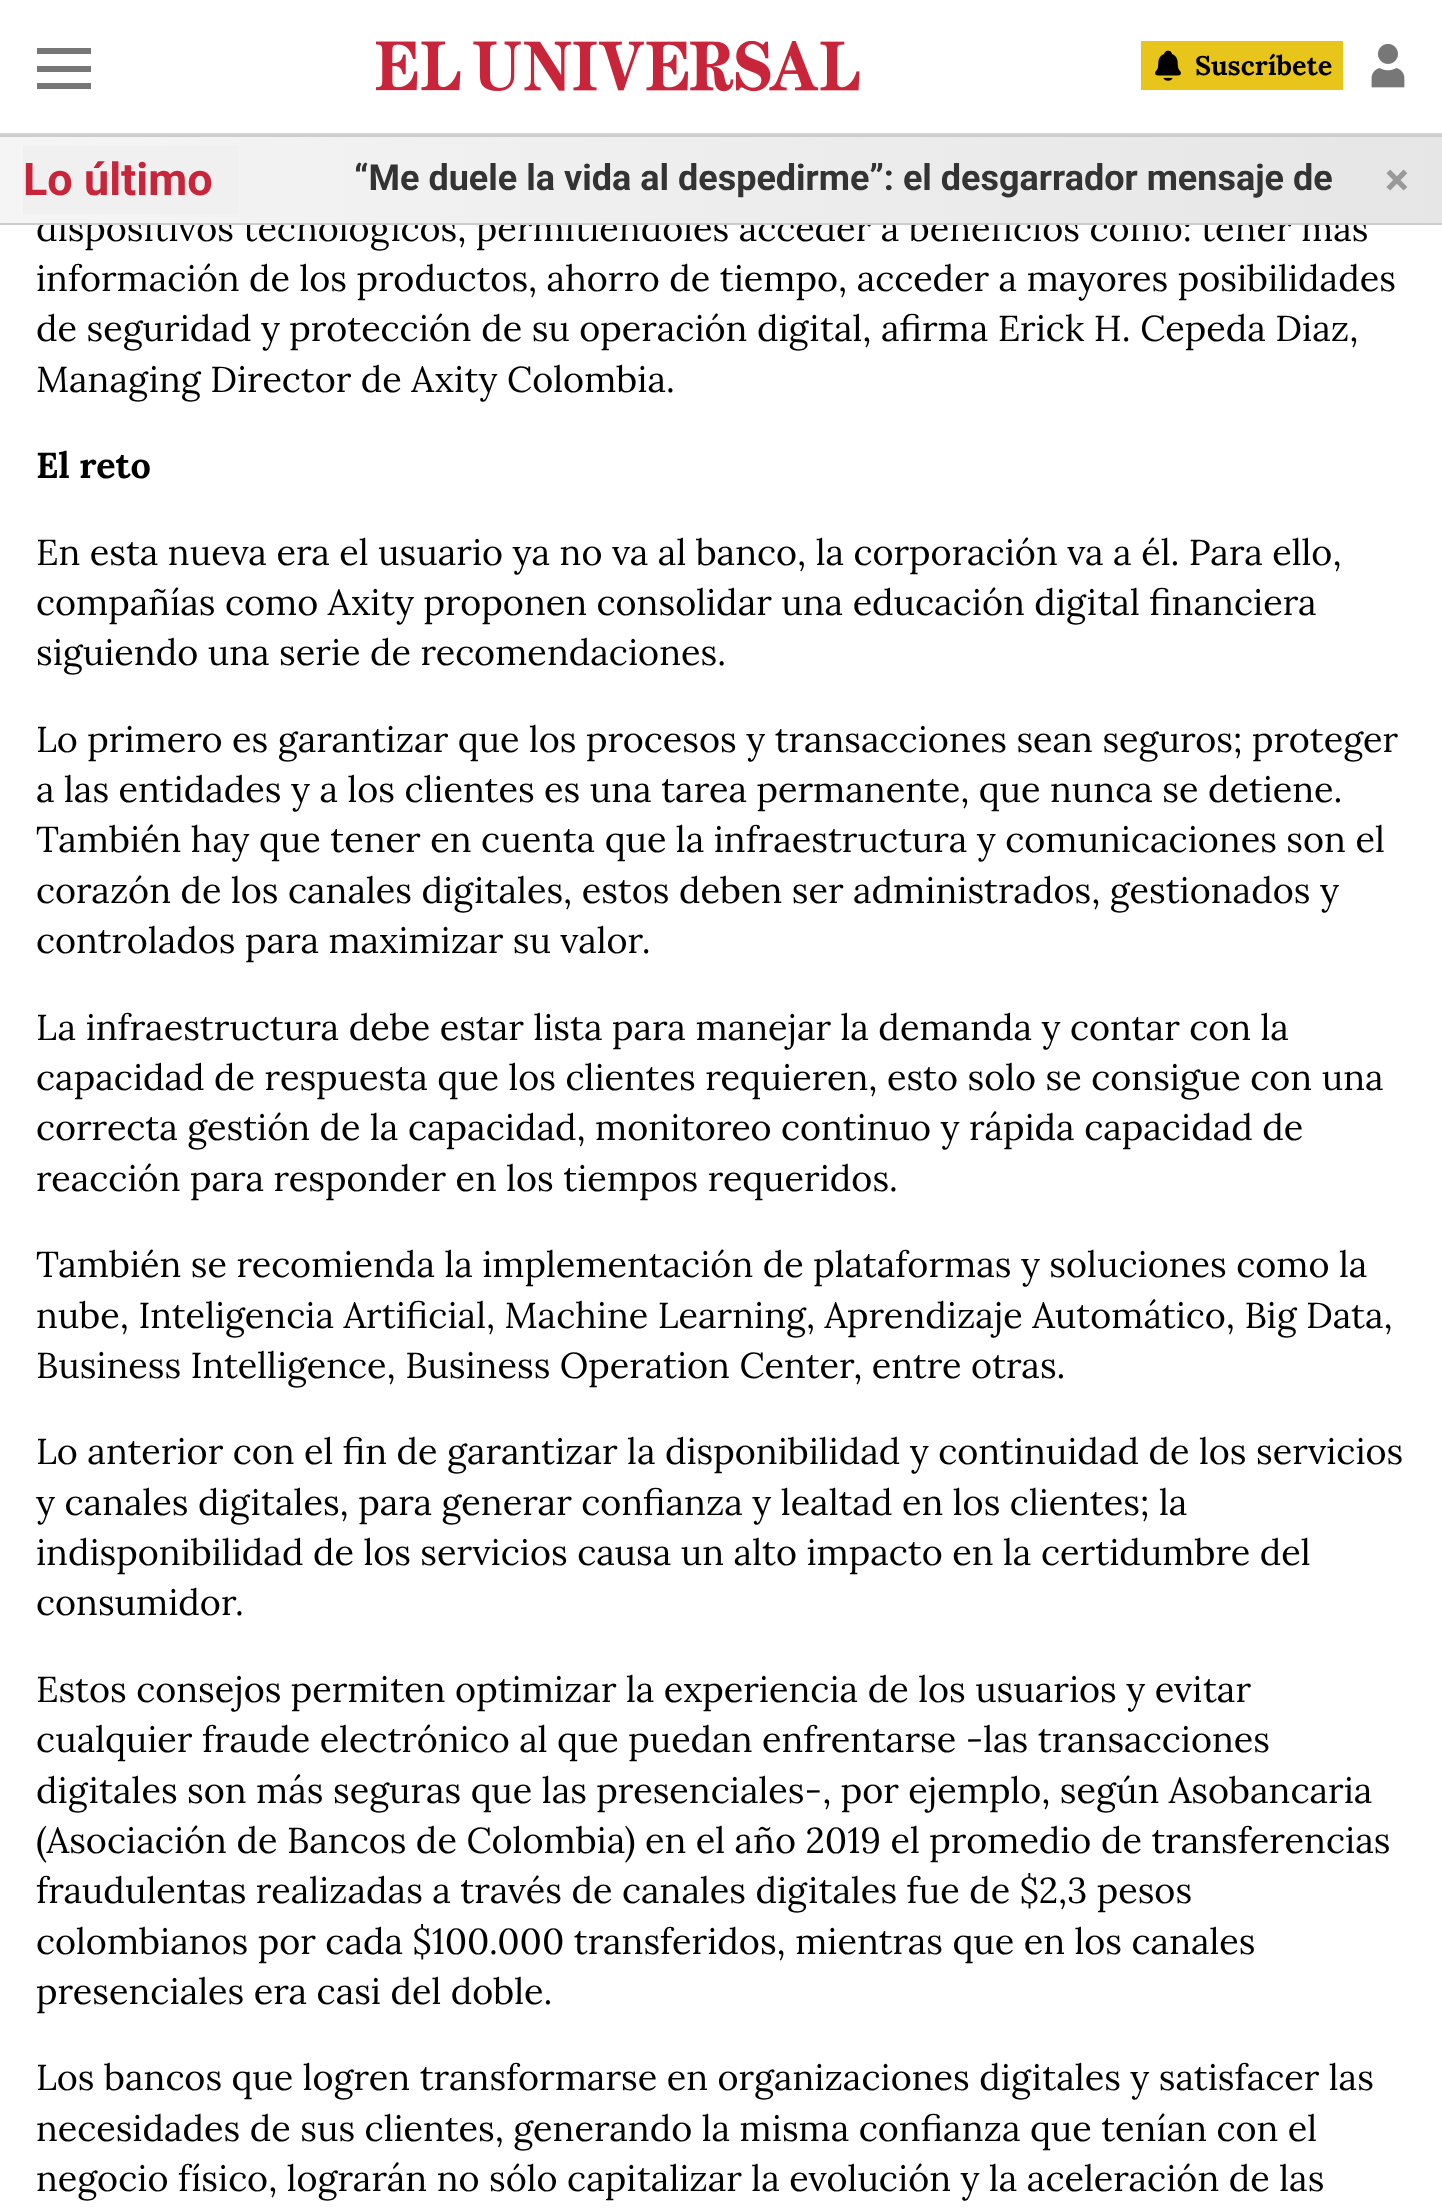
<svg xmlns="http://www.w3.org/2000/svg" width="1442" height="2209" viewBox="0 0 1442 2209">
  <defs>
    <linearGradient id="g1" gradientUnits="userSpaceOnUse" x1="0" y1="180" x2="1442" y2="180"><stop offset="0" stop-color="#f5f5f5"/><stop offset="1" stop-color="#e6e6e6"/></linearGradient>
    <linearGradient id="g2" gradientUnits="userSpaceOnUse" x1="-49" y1="180" x2="302" y2="180"><stop offset="0.8" stop-color="#f0f0f0"/><stop offset="1" stop-color="#f0f0f0" stop-opacity="0"/></linearGradient>
  </defs>
  <rect width="100%" height="100%" fill="#ffffff"/>
  <rect x="0" y="133" width="1442" height="2" fill="#d4d4d4"/>
  <rect x="37" y="48" width="54" height="6" fill="#777777"/>
  <rect x="37" y="66" width="54" height="6" fill="#777777"/>
  <rect x="37" y="83" width="54" height="6" fill="#777777"/>
  <image x="376" y="41" width="484" height="51" href="img1.png"/>
  <rect x="1141" y="41" width="202" height="49" fill="#e8c51a"/>
  <image x="1155" y="50" width="26" height="31" href="img2.png"/>
  <text x="1195" y="75" font-family="Lora" font-size="27" font-weight="bold" fill="#000000">Suscríbete</text>
  <image x="1371" y="43" width="34" height="45" href="img3.png"/>
  <text x="36" y="241" font-family="Lora" font-size="36" fill="#000000">dispositivos tecnológicos, permitiéndoles acceder a beneficios como: tener más</text>
  <rect x="0" y="137" width="1442" height="86" fill="url(#g1)"/>
  <rect x="0" y="135" width="1442" height="2" fill="#cccccc"/>
  <rect x="0" y="223" width="1442" height="2" fill="#cccccc"/>
  <rect x="23" y="146" width="216" height="68" fill="url(#g2)"/>
  <text x="23" y="195" font-family="Roboto" font-size="45" font-weight="bold" fill="#c8243a">Lo último</text>
  <text x="354" y="190" font-family="Roboto" font-size="36" font-weight="bold" fill="#333333">“Me duele la vida al despedirme”: el desgarrador mensaje de</text>
  <text x="1385" y="195" font-family="Roboto" font-size="45" font-weight="bold" fill="#999999">×</text>
  <text x="36" y="291" font-family="Lora" font-size="36" fill="#000000">información de los productos, ahorro de tiempo, acceder a mayores posibilidades</text>
  <text x="36" y="341" font-family="Lora" font-size="36" fill="#000000">de seguridad y protección de su operación digital, afirma Erick H. Cepeda Diaz,</text>
  <text x="36" y="392" font-family="Lora" font-size="36" fill="#000000">Managing Director de Axity Colombia.</text>
  <text x="36" y="478" font-family="Lora" font-size="36" font-weight="bold" fill="#000000">El reto</text>
  <text x="36" y="565" font-family="Lora" font-size="36" fill="#000000">En esta nueva era el usuario ya no va al banco, la corporación va a él. Para ello,</text>
  <text x="36" y="615" font-family="Lora" font-size="36" fill="#000000">compañías como Axity proponen consolidar una educación digital financiera</text>
  <text x="36" y="665" font-family="Lora" font-size="36" fill="#000000">siguiendo una serie de recomendaciones.</text>
  <text x="36" y="752" font-family="Lora" font-size="36" fill="#000000">Lo primero es garantizar que los procesos y transacciones sean seguros; proteger</text>
  <text x="36" y="802" font-family="Lora" font-size="36" fill="#000000">a las entidades y a los clientes es una tarea permanente, que nunca se detiene.</text>
  <text x="36" y="852" font-family="Lora" font-size="36" fill="#000000">También hay que tener en cuenta que la infraestructura y comunicaciones son el</text>
  <text x="36" y="903" font-family="Lora" font-size="36" fill="#000000">corazón de los canales digitales, estos deben ser administrados, gestionados y</text>
  <text x="36" y="953" font-family="Lora" font-size="36" fill="#000000">controlados para maximizar su valor.</text>
  <text x="36" y="1040" font-family="Lora" font-size="36" fill="#000000">La infraestructura debe estar lista para manejar la demanda y contar con la</text>
  <text x="36" y="1090" font-family="Lora" font-size="36" fill="#000000">capacidad de respuesta que los clientes requieren, esto solo se consigue con una</text>
  <text x="36" y="1140" font-family="Lora" font-size="36" fill="#000000">correcta gestión de la capacidad, monitoreo continuo y rápida capacidad de</text>
  <text x="36" y="1191" font-family="Lora" font-size="36" fill="#000000">reacción para responder en los tiempos requeridos.</text>
  <text x="36" y="1277" font-family="Lora" font-size="36" fill="#000000">También se recomienda la implementación de plataformas y soluciones como la</text>
  <text x="36" y="1328" font-family="Lora" font-size="36" fill="#000000">nube, Inteligencia Artificial, Machine Learning, Aprendizaje Automático, Big Data,</text>
  <text x="36" y="1378" font-family="Lora" font-size="36" fill="#000000">Business Intelligence, Business Operation Center, entre otras.</text>
  <text x="36" y="1464" font-family="Lora" font-size="36" fill="#000000">Lo anterior con el fin de garantizar la disponibilidad y continuidad de los servicios</text>
  <text x="36" y="1515" font-family="Lora" font-size="36" fill="#000000">y canales digitales, para generar confianza y lealtad en los clientes; la</text>
  <text x="36" y="1565" font-family="Lora" font-size="36" fill="#000000">indisponibilidad de los servicios causa un alto impacto en la certidumbre del</text>
  <text x="36" y="1615" font-family="Lora" font-size="36" fill="#000000">consumidor.</text>
  <text x="36" y="1702" font-family="Lora" font-size="36" fill="#000000">Estos consejos permiten optimizar la experiencia de los usuarios y evitar</text>
  <text x="36" y="1752" font-family="Lora" font-size="36" fill="#000000">cualquier fraude electrónico al que puedan enfrentarse -las transacciones</text>
  <text x="36" y="1803" font-family="Lora" font-size="36" fill="#000000">digitales son más seguras que las presenciales-, por ejemplo, según Asobancaria</text>
  <text x="36" y="1853" font-family="Lora" font-size="36" fill="#000000">(Asociación de Bancos de Colombia) en el año 2019 el promedio de transferencias</text>
  <text x="36" y="1903" font-family="Lora" font-size="36" fill="#000000">fraudulentas realizadas a través de canales digitales fue de $2,3 pesos</text>
  <text x="36" y="1954" font-family="Lora" font-size="36" fill="#000000">colombianos por cada $100.000 transferidos, mientras que en los canales</text>
  <text x="36" y="2004" font-family="Lora" font-size="36" fill="#000000">presenciales era casi del doble.</text>
  <text x="36" y="2090" font-family="Lora" font-size="36" fill="#000000">Los bancos que logren transformarse en organizaciones digitales y satisfacer las</text>
  <text x="36" y="2141" font-family="Lora" font-size="36" fill="#000000">necesidades de sus clientes, generando la misma confianza que tenían con el</text>
  <text x="36" y="2191" font-family="Lora" font-size="36" fill="#000000">negocio físico, lograrán no sólo capitalizar la evolución y la aceleración de las</text>
</svg>
